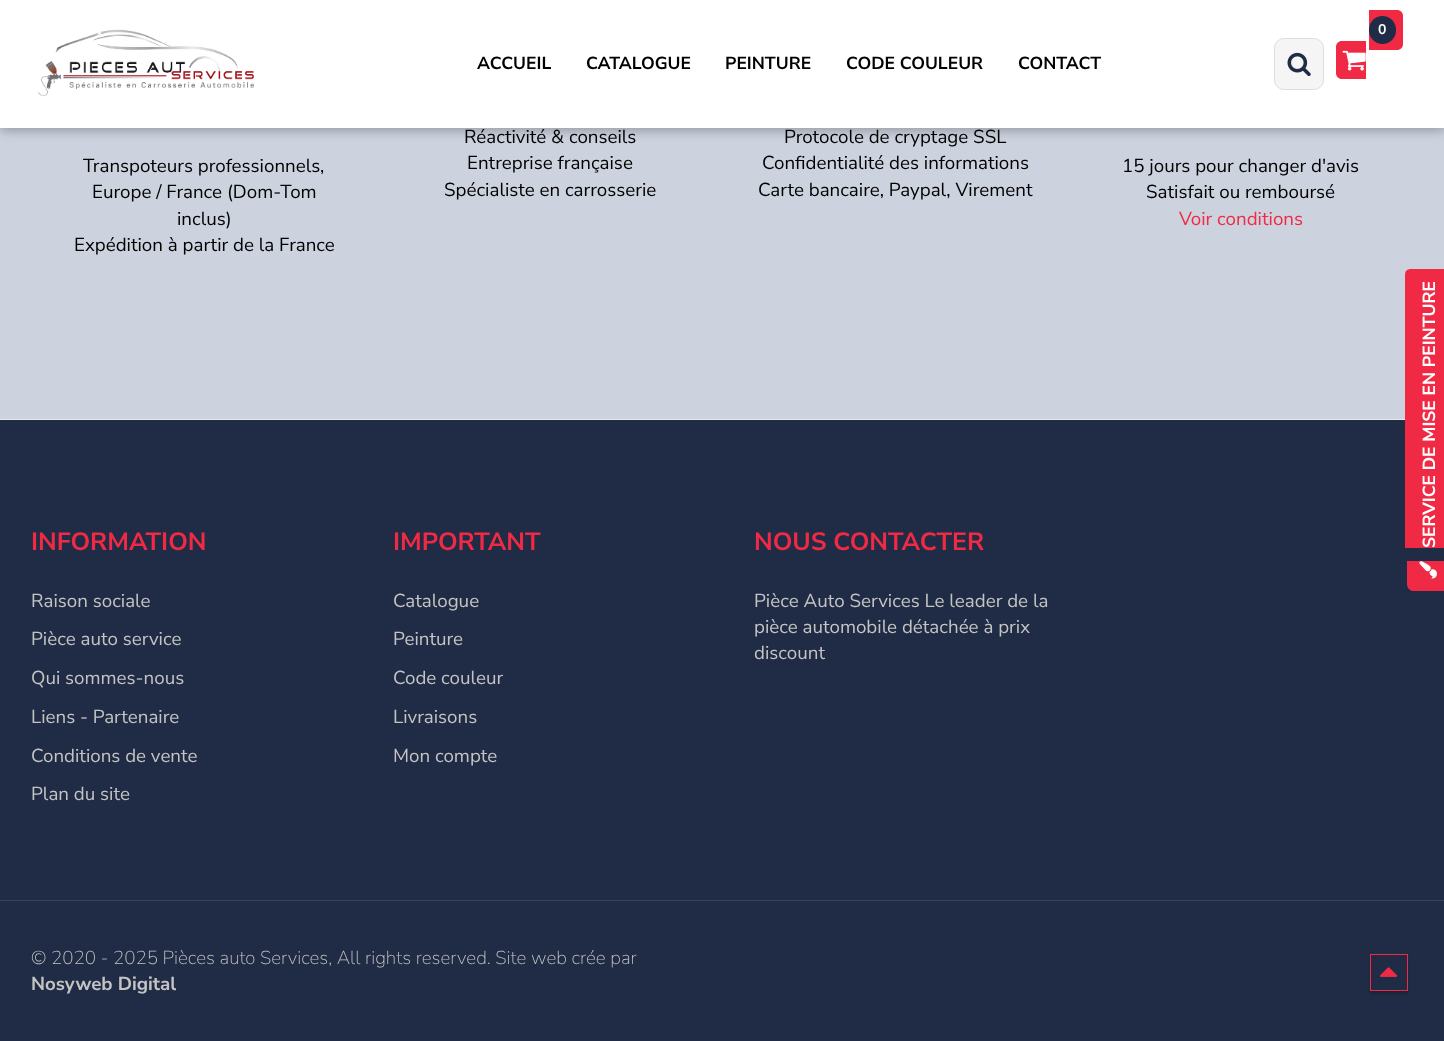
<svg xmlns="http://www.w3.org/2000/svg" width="1444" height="1041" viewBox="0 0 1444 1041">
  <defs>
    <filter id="blur1" x="-50%" y="-200%" width="200%" height="500%"><feGaussianBlur stdDeviation="6"/></filter>
    <clipPath id="clip1"><path d="M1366 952H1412V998H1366ZM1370 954H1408V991H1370Z" clip-rule="evenodd"/></clipPath>
    <filter id="blur2" x="-50%" y="-200%" width="200%" height="500%"><feGaussianBlur stdDeviation="1"/></filter>
  </defs>
  <rect width="100%" height="100%" fill="#ccd2de"/>
  <rect x="0" y="3" width="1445" height="127" fill="#000000" fill-opacity="0.3" filter="url(#blur1)"/>
  <rect x="0" y="0" width="1444" height="128" fill="#ffffff"/>
  <image x="38" y="29" width="217" height="67" href="img1.png"/>
  <text x="477" y="69" font-family="Nunito Sans" font-size="17.5" font-weight="bold" fill="#000000">ACCUEIL</text>
  <text x="586" y="69" font-family="Nunito Sans" font-size="17.5" font-weight="bold" fill="#000000">CATALOGUE</text>
  <text x="725" y="69" font-family="Nunito Sans" font-size="17.5" font-weight="bold" fill="#000000">PEINTURE</text>
  <text x="846" y="69" font-family="Nunito Sans" font-size="17.5" font-weight="bold" fill="#000000">CODE COULEUR</text>
  <text x="1018" y="69" font-family="Nunito Sans" font-size="17.5" font-weight="bold" fill="#000000">CONTACT</text>
  <rect x="1274.5" y="38.5" width="49" height="51" rx="9.5" fill="#f5f5f5" stroke="#dddddd"/>
  <image x="1287" y="52" width="24" height="24" href="img2.png"/>
  <path d="M1342 41H1366V79H1342C1338.5 79 1336 76.5 1336 73V47C1336 43.5 1338.5 41 1342 41Z" fill="#f02a44"/>
  <path d="M1369 10H1397C1400.5 10 1403 12.5 1403 16V44C1403 47.5 1400.5 50 1397 50H1369Z" fill="#f02a44"/>
  <rect x="1369" y="16" width="27" height="28" rx="13.5" fill="#202c45"/>
  <text x="1378" y="34" font-family="Nunito Sans" font-size="14" font-weight="bold" fill="#ffffff">0</text>
  <image x="1342" y="50" width="24" height="21" href="img3.png"/>
  <text x="83" y="172" font-family="Nunito Sans" font-size="18.75" fill="#000000">Transpoteurs professionnels,</text>
  <text x="92" y="198" font-family="Nunito Sans" font-size="18.75" fill="#000000">Europe / France (Dom-Tom</text>
  <text x="177" y="225" font-family="Nunito Sans" font-size="18.75" fill="#000000">inclus)</text>
  <text x="74" y="251" font-family="Nunito Sans" font-size="18.75" fill="#000000">Expédition à partir de la France</text>
  <text x="464" y="143" font-family="Nunito Sans" font-size="18.75" fill="#000000">Réactivité &amp; conseils</text>
  <text x="467" y="169" font-family="Nunito Sans" font-size="18.75" fill="#000000">Entreprise française</text>
  <text x="444" y="196" font-family="Nunito Sans" font-size="18.75" fill="#000000">Spécialiste en carrosserie</text>
  <text x="784" y="143" font-family="Nunito Sans" font-size="18.75" fill="#000000">Protocole de cryptage SSL</text>
  <text x="762" y="169" font-family="Nunito Sans" font-size="18.75" fill="#000000">Confidentialité des informations</text>
  <text x="758" y="196" font-family="Nunito Sans" font-size="18.75" fill="#000000">Carte bancaire, Paypal, Virement</text>
  <text x="1122" y="172" font-family="Nunito Sans" font-size="18.75" fill="#000000">15 jours pour changer d'avis</text>
  <text x="1146" y="198" font-family="Nunito Sans" font-size="18.75" fill="#000000">Satisfait ou remboursé</text>
  <text x="1179" y="225" font-family="Nunito Sans" font-size="18.75" fill="#f02a44">Voir conditions</text>
  <rect x="0" y="420" width="1444" height="480" fill="#202c45"/>
  <path d="M1405 548V275C1405 271 1407 269 1411 269H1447C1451 269 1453 271 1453 275V548Z" fill="#f02a44"/>
  <text x="1435" y="548" transform="rotate(-90 1435 548)" font-family="Nunito Sans" font-size="17.5" font-weight="bold" fill="#ffffff">SERVICE DE MISE EN PEINTURE</text>
  <path d="M1407 584V561H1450V584C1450 588 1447 591 1443 591H1413C1410 591 1407 588 1407 584Z" fill="#f02a44"/>
  <image x="1419" y="561" width="18" height="18" href="img4.png"/>
  <rect x="0" y="419" width="1405" height="1" fill="#eaeaeb"/>
  <text x="31" y="550" font-family="Nunito Sans" font-size="25" font-weight="bold" fill="#f02a44">INFORMATION</text>
  <text x="31" y="607" font-family="Nunito Sans" font-size="18.75" fill="#c4c4c4">Raison sociale</text>
  <text x="31" y="645" font-family="Nunito Sans" font-size="18.75" fill="#c4c4c4">Pièce auto service</text>
  <text x="31" y="684" font-family="Nunito Sans" font-size="18.75" fill="#c4c4c4">Qui sommes-nous</text>
  <text x="31" y="723" font-family="Nunito Sans" font-size="18.75" fill="#c4c4c4">Liens - Partenaire</text>
  <text x="31" y="762" font-family="Nunito Sans" font-size="18.75" fill="#c4c4c4">Conditions de vente</text>
  <text x="31" y="800" font-family="Nunito Sans" font-size="18.75" fill="#c4c4c4">Plan du site</text>
  <text x="393" y="550" font-family="Nunito Sans" font-size="25" font-weight="bold" fill="#f02a44">IMPORTANT</text>
  <text x="393" y="607" font-family="Nunito Sans" font-size="18.75" fill="#c4c4c4">Catalogue</text>
  <text x="393" y="645" font-family="Nunito Sans" font-size="18.75" fill="#c4c4c4">Peinture</text>
  <text x="393" y="684" font-family="Nunito Sans" font-size="18.75" fill="#c4c4c4">Code couleur</text>
  <text x="393" y="723" font-family="Nunito Sans" font-size="18.75" fill="#c4c4c4">Livraisons</text>
  <text x="393" y="762" font-family="Nunito Sans" font-size="18.75" fill="#c4c4c4">Mon compte</text>
  <text x="754" y="550" font-family="Nunito Sans" font-size="25" font-weight="bold" fill="#f02a44">NOUS CONTACTER</text>
  <text x="754" y="607" font-family="Nunito Sans" font-size="18.75" fill="#c4c4c4">Pièce Auto Services Le leader de la</text>
  <text x="754" y="633" font-family="Nunito Sans" font-size="18.75" fill="#c4c4c4">pièce automobile détachée à prix</text>
  <text x="754" y="659" font-family="Nunito Sans" font-size="18.75" fill="#c4c4c4">discount</text>
  <rect x="0" y="901" width="1444" height="140" fill="#202c45"/>
  <rect x="0" y="900" width="1444" height="1" fill="#324368"/>
  <text x="31" y="964" font-family="Nunito Sans" font-size="18.75" font-weight="200" fill="#c4c4c4">© 2020 - 2025 Pièces auto Services, All rights reserved. Site web crée par</text>
  <text x="31" y="990" font-family="Nunito Sans" font-size="18.75" font-weight="bold" fill="#c4c4c4">Nosyweb Digital</text>
  <g clip-path="url(#clip1)">
    <rect x="1370" y="956" width="38" height="38" fill="#000000" fill-opacity="0.2" filter="url(#blur2)"/>
  </g>
  <rect x="1370.5" y="954.5" width="37" height="36" fill="none" stroke="#f02a44"/>
  <image x="1380" y="967" width="18" height="10" href="img5.png"/>
</svg>
